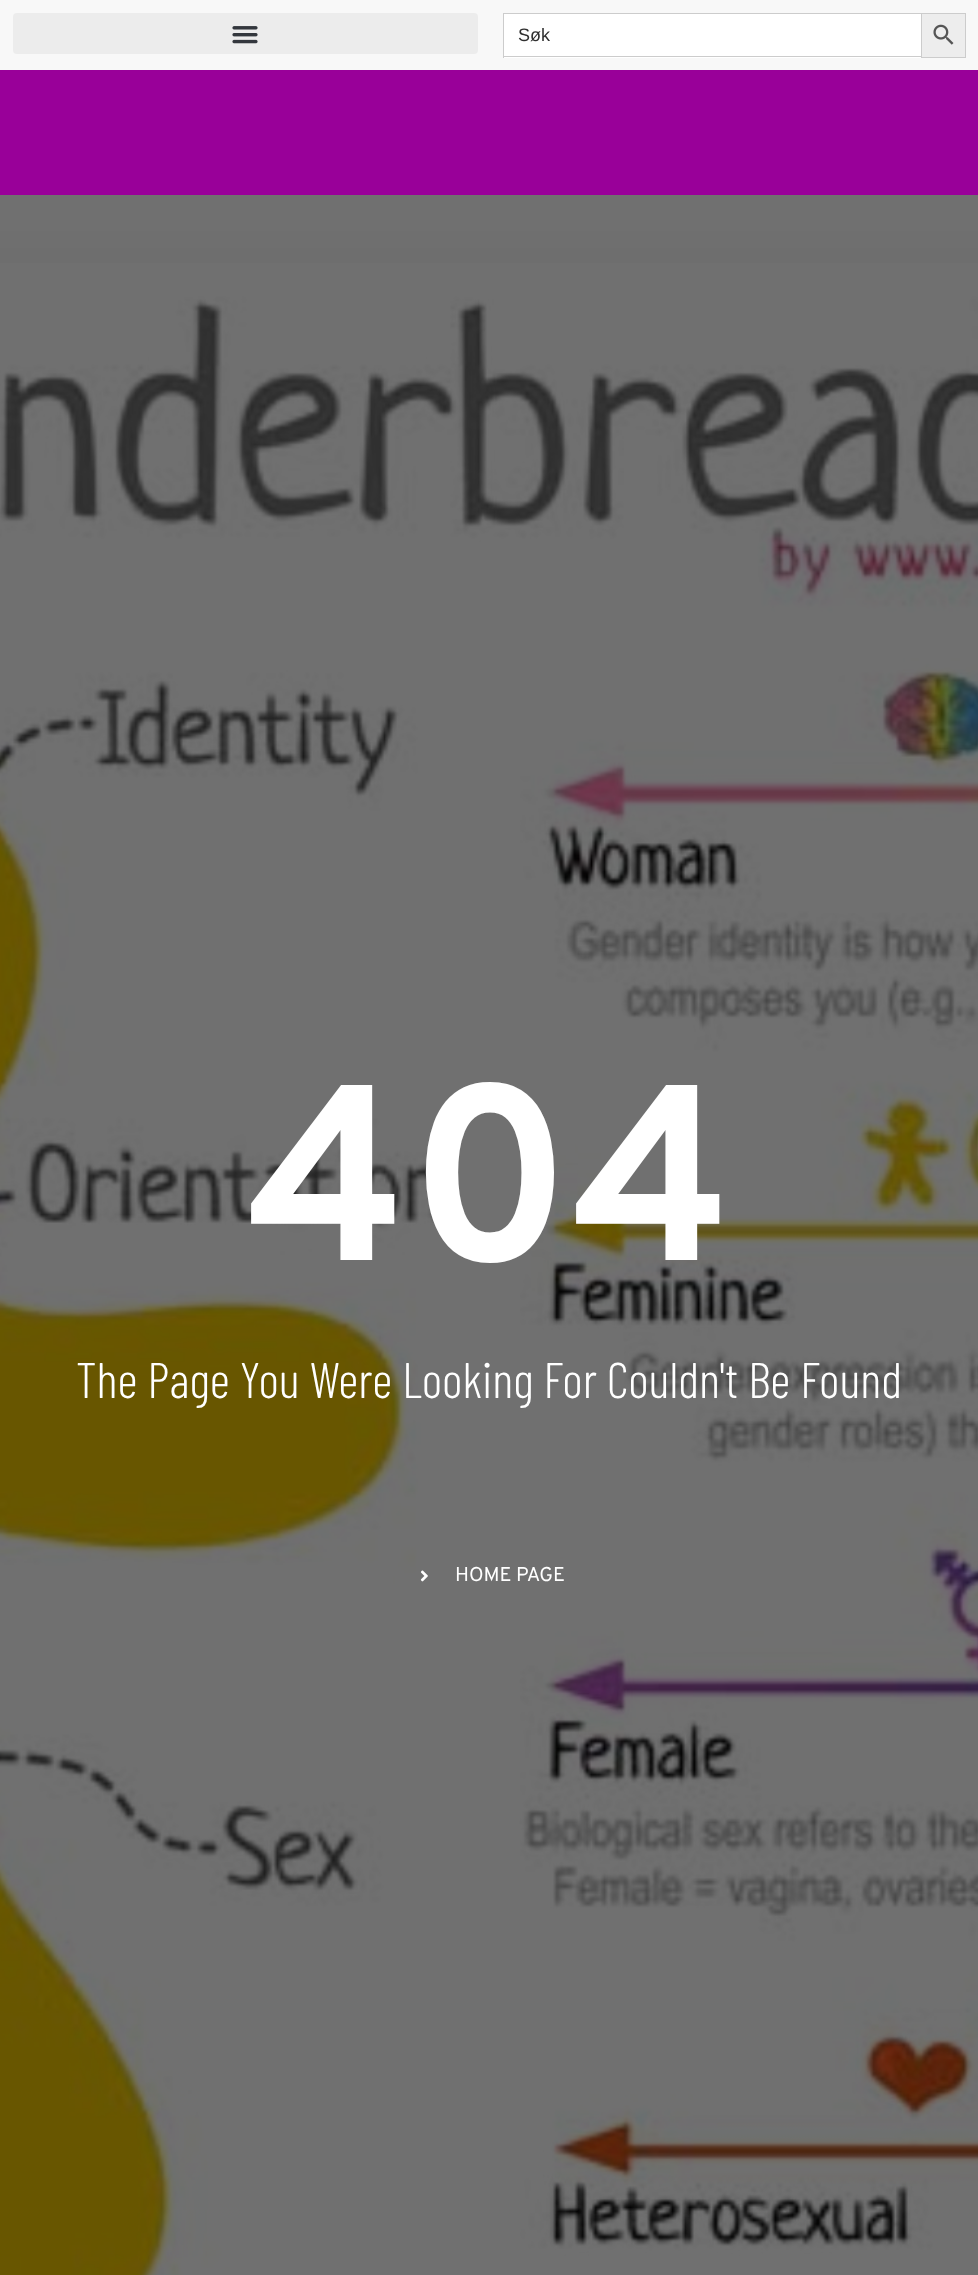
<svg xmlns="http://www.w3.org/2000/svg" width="978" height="2275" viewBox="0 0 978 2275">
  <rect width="100%" height="100%" fill="#f8f8f8"/>
  <rect x="13" y="13" width="465" height="41" rx="4" fill="#ececec"/>
  <image x="232" y="26" width="26" height="18" href="img1.png"/>
  <rect x="504" y="14" width="417" height="44" fill="#ffffff"/>
  <rect x="503" y="13" width="418" height="1" fill="#cccccc"/>
  <rect x="503" y="56" width="418" height="1" fill="#cccccc"/>
  <rect x="503" y="13" width="1" height="45" fill="#cccccc"/>
  <text x="518" y="41" font-family="Liberation Sans" font-size="18" fill="#303030">Søk</text>
  <rect x="921.5" y="13.5" width="44" height="44" fill="#ededed" stroke="#cccccc"/>
  <image x="933" y="24" width="21" height="21" href="img2.png"/>
  <rect x="0" y="70" width="978" height="125" fill="#990099"/>
  <image x="0" y="195" width="978" height="2080" href="img3.png"/>
  <text x="247" y="1260" font-family="Overpass" font-size="250" font-weight="bold" fill="#ffffff">404</text>
  <text x="76" y="1398" font-family="Barlow Condensed" font-size="50" font-weight="300" fill="#ffffff">The Page You Were Looking For Couldn't Be Found</text>
  <image x="420" y="1570" width="8" height="12" href="img4.png"/>
  <text x="455" y="1581" font-family="Overpass" font-size="20" fill="#ffffff">HOME PAGE</text>
</svg>
